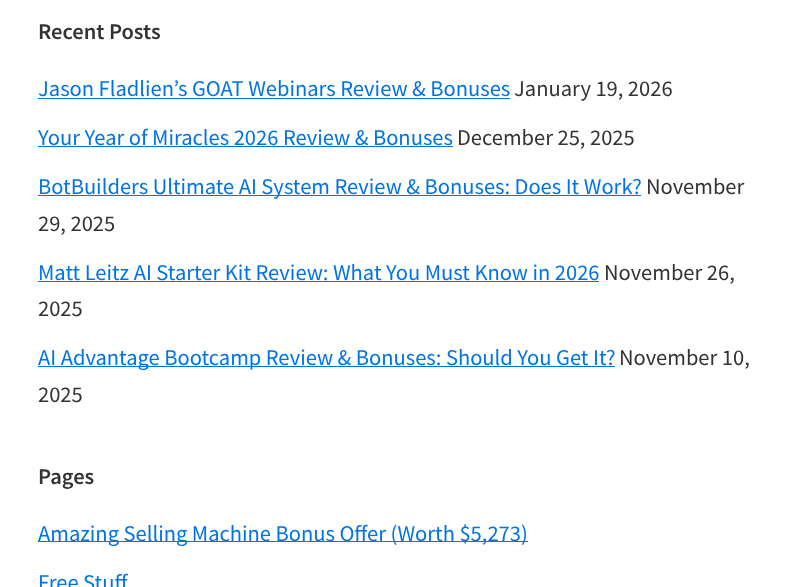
<svg xmlns="http://www.w3.org/2000/svg" width="792" height="587" viewBox="0 0 792 587">
  <rect width="100%" height="100%" fill="#ffffff"/>
  <text x="38" y="39" font-family="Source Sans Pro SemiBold" font-size="22.5" font-weight="600" fill="#333333">Recent Posts</text>
  <text x="38" y="96" font-family="Source Sans Pro" font-size="22.5" fill="#0073e5">Jason Fladlien’s GOAT Webinars Review &amp; Bonuses</text>
  <rect x="38" y="98" width="472" height="1" fill="#0073e5"/>
  <text x="514" y="96" font-family="Source Sans Pro" font-size="22.5" fill="#333333">January 19, 2026</text>
  <text x="38" y="145" font-family="Source Sans Pro" font-size="22.5" fill="#0073e5">Your Year of Miracles 2026 Review &amp; Bonuses</text>
  <rect x="38" y="146" width="415" height="1" fill="#0073e5"/>
  <text x="457" y="145" font-family="Source Sans Pro" font-size="22.5" fill="#333333">December 25, 2025</text>
  <rect x="38" y="195" width="603" height="1" fill="#0073e5"/>
  <text x="38" y="194" font-family="Source Sans Pro" font-size="22.5" fill="#0073e5">BotBuilders Ultimate AI System Review &amp; Bonuses: Does It Work?</text>
  <text x="646" y="194" font-family="Source Sans Pro" font-size="22.5" fill="#333333">November</text>
  <text x="38" y="231" font-family="Source Sans Pro" font-size="22.5" fill="#333333">29, 2025</text>
  <text x="38" y="280" font-family="Source Sans Pro" font-size="22.5" fill="#0073e5">Matt Leitz AI Starter Kit Review: What You Must Know in 2026</text>
  <rect x="38" y="281" width="561" height="1" fill="#0073e5"/>
  <text x="604" y="280" font-family="Source Sans Pro" font-size="22.5" fill="#333333">November 26,</text>
  <text x="38" y="316" font-family="Source Sans Pro" font-size="22.5" fill="#333333">2025</text>
  <rect x="38" y="366" width="577" height="1" fill="#0073e5"/>
  <text x="38" y="365" font-family="Source Sans Pro" font-size="22.5" fill="#0073e5">AI Advantage Bootcamp Review &amp; Bonuses: Should You Get It?</text>
  <text x="619" y="365" font-family="Source Sans Pro" font-size="22.5" fill="#333333">November 10,</text>
  <text x="38" y="402" font-family="Source Sans Pro" font-size="22.5" fill="#333333">2025</text>
  <text x="38" y="484" font-family="Source Sans Pro SemiBold" font-size="22.5" font-weight="600" fill="#333333">Pages</text>
  <rect x="38" y="541" width="490" height="1" fill="#0073e5"/>
  <text x="38" y="541" font-family="Source Sans Pro" font-size="22.5" fill="#0073e5">Amazing Selling Machine Bonus Offer (Worth $5,273)</text>
  <text x="38" y="590" font-family="Source Sans Pro" font-size="22.5" fill="#0073e5">Free Stuff</text>
</svg>
